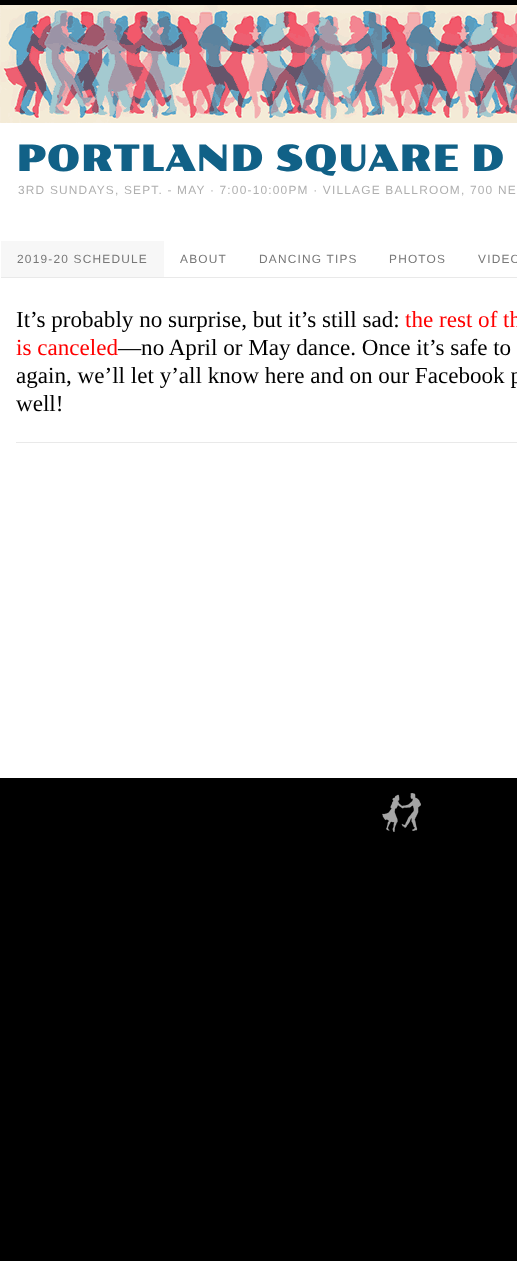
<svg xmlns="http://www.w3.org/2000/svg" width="517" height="1261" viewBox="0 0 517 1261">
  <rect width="100%" height="100%" fill="#000000"/>
  <rect x="0" y="123" width="517" height="655" fill="#ffffff"/>
  <image x="0" y="5" width="517" height="118" href="img1.png"/>
  <text x="16" y="171" font-family="Poller One" font-size="36.4" fill="#116187">PORTLAND SQUARE D</text>
  <text x="18" y="194" font-family="Liberation Sans" font-size="11.9" letter-spacing="1.2" fill="#afafaf">3RD SUNDAYS, SEPT. - MAY · 7:00-10:00PM · VILLAGE BALLROOM, 700 NE</text>
  <rect x="1" y="277" width="516" height="1" fill="#e9e9e9"/>
  <rect x="1" y="241" width="163" height="36" fill="#f7f7f7"/>
  <text x="17" y="263" font-family="Liberation Sans" font-size="11.9" letter-spacing="1.2" fill="#777777">2019-20 SCHEDULE</text>
  <text x="180" y="263" font-family="Liberation Sans" font-size="11.9" letter-spacing="1.2" fill="#777777">ABOUT</text>
  <text x="259" y="263" font-family="Liberation Sans" font-size="11.9" letter-spacing="1.2" fill="#777777">DANCING TIPS</text>
  <text x="389" y="263" font-family="Liberation Sans" font-size="11.9" letter-spacing="1.2" fill="#777777">PHOTOS</text>
  <text x="478" y="263" font-family="Liberation Sans" font-size="11.9" letter-spacing="1.2" fill="#777777">VIDEO</text>
  <rect x="16" y="442" width="501" height="1" fill="#e9e9e9"/>
  <text x="16" y="327" font-family="Liberation Serif" font-size="23.1" fill="#000000">It’s probably no surprise, but it’s still sad:</text>
  <text x="405" y="327" font-family="Liberation Serif" font-size="23.1" fill="#ff0000">the rest of th</text>
  <text x="16" y="355" font-family="Liberation Serif" font-size="23.1" fill="#ff0000">is canceled</text>
  <text x="118" y="355" font-family="Liberation Serif" font-size="23.1" fill="#000000">—no April or May dance. Once it’s safe to</text>
  <text x="16" y="383" font-family="Liberation Serif" font-size="23.1" fill="#000000">again, we’ll let y’all know here and on our Facebook p</text>
  <text x="16" y="411" font-family="Liberation Serif" font-size="23.1" fill="#000000">well!</text>
  <image x="382" y="793" width="39" height="39" href="img2.png"/>
</svg>
